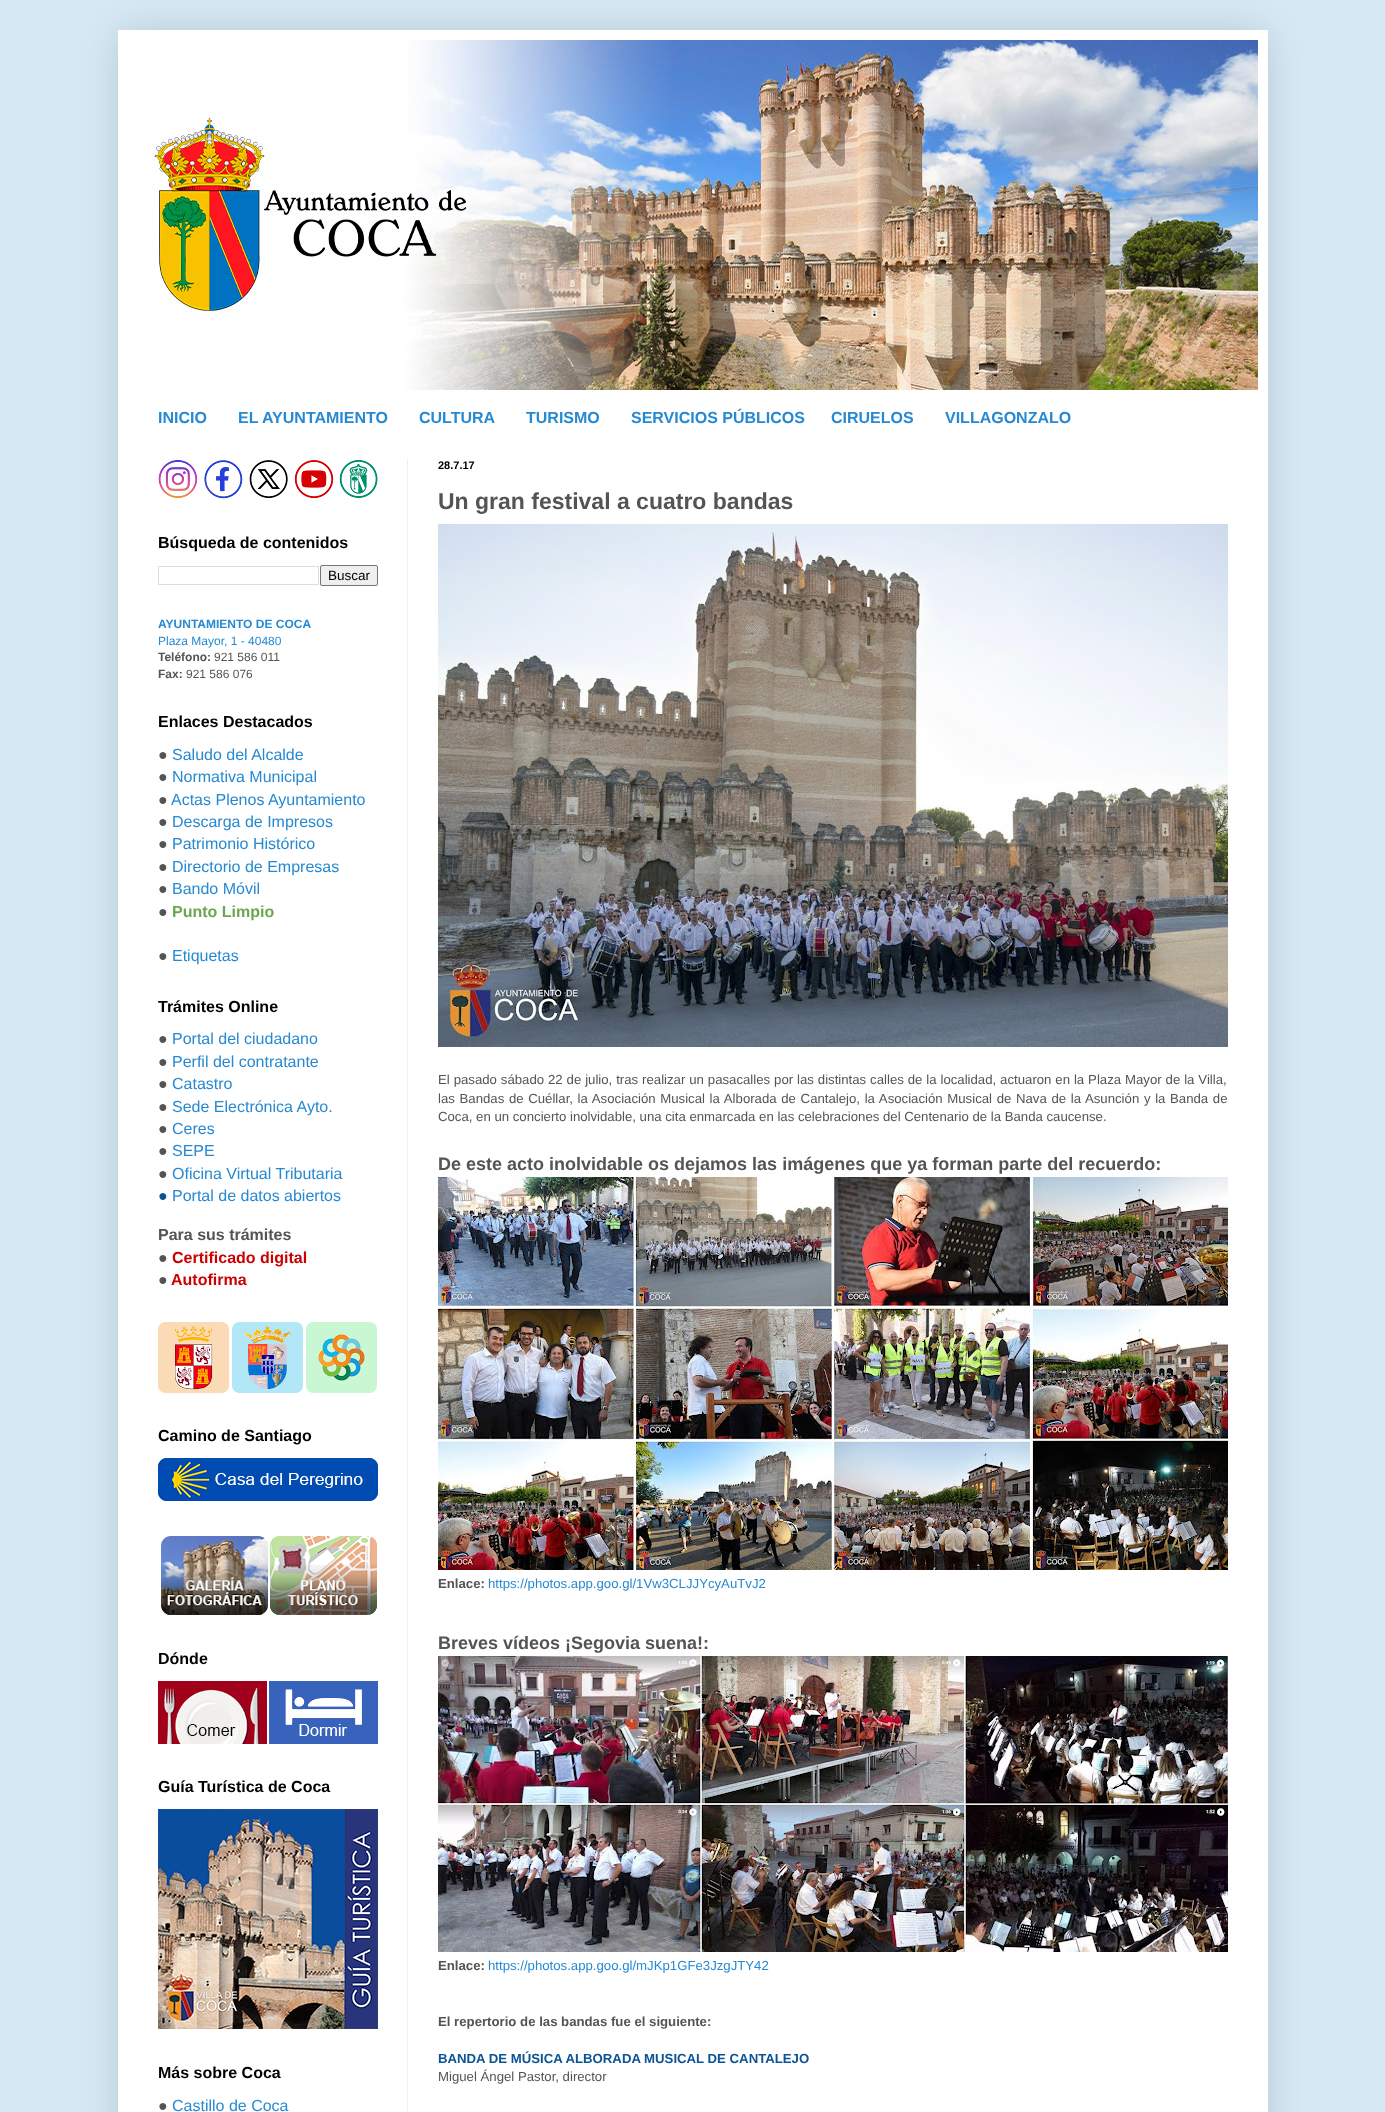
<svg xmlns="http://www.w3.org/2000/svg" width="1385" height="2112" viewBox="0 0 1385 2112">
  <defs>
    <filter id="blur1" x="-50%" y="-200%" width="200%" height="500%"><feGaussianBlur stdDeviation="20"/></filter>
  </defs>
  <rect width="100%" height="100%" fill="#d6eaf6"/>
  <rect x="118" y="30" width="1150" height="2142" fill="#000000" fill-opacity="0.15" filter="url(#blur1)"/>
  <rect x="118" y="30" width="1150" height="2082" fill="#ffffff"/>
  <image x="152" y="40" width="1106" height="350" href="img1.png"/>
  <text x="158" y="423" font-family="Liberation Sans" font-size="16" font-weight="bold" fill="#2689d2">INICIO</text>
  <text x="238" y="423" font-family="Liberation Sans" font-size="16" font-weight="bold" fill="#2689d2">EL AYUNTAMIENTO</text>
  <text x="419" y="423" font-family="Liberation Sans" font-size="16" font-weight="bold" fill="#2689d2">CULTURA</text>
  <text x="526" y="423" font-family="Liberation Sans" font-size="16" font-weight="bold" fill="#2689d2">TURISMO</text>
  <text x="631" y="423" font-family="Liberation Sans" font-size="16" font-weight="bold" fill="#2689d2">SERVICIOS PÚBLICOS</text>
  <text x="831" y="423" font-family="Liberation Sans" font-size="16" font-weight="bold" fill="#2689d2">CIRUELOS</text>
  <text x="945" y="423" font-family="Liberation Sans" font-size="16" font-weight="bold" fill="#2689d2">VILLAGONZALO</text>
  <rect x="407" y="459" width="1" height="1653" fill="#f1f1f1"/>
  <image x="158" y="460" width="40" height="38" href="img2.png"/>
  <image x="204" y="460" width="39" height="39" href="img3.png"/>
  <image x="249" y="460" width="39" height="38" href="img4.png"/>
  <image x="294" y="460" width="40" height="38" href="img5.png"/>
  <image x="339" y="460" width="39" height="38" href="img6.png"/>
  <text x="158" y="548" font-family="Liberation Sans" font-size="16" font-weight="bold" fill="#000000">Búsqueda de contenidos</text>
  <rect x="158.5" y="566.5" width="160" height="18" fill="none" stroke="#dddddd"/>
  <rect x="320.5" y="565.5" width="57" height="20" rx="1.5" fill="#efefef" stroke="#767676"/>
  <text x="328" y="580" font-family="Liberation Sans" font-size="13.5" fill="#000000">Buscar</text>
  <text x="158" y="628" font-family="Liberation Sans" font-size="12" font-weight="bold" fill="#2689d2">AYUNTAMIENTO DE COCA</text>
  <text x="158" y="645" font-family="Liberation Sans" font-size="12" fill="#2689d2">Plaza Mayor, 1 - 40480</text>
  <text x="158" y="661" font-family="Liberation Sans" font-size="12" font-weight="bold" fill="#545454">Teléfono:</text>
  <text x="214" y="661" font-family="Liberation Sans" font-size="12" fill="#545454">921 586 011</text>
  <text x="158" y="678" font-family="Liberation Sans" font-size="12" font-weight="bold" fill="#545454">Fax:</text>
  <text x="186" y="678" font-family="Liberation Sans" font-size="12" fill="#545454">921 586 076</text>
  <text x="158" y="727" font-family="Liberation Sans" font-size="16" font-weight="bold" fill="#000000">Enlaces Destacados</text>
  <text x="158" y="760" font-family="Liberation Sans" font-size="16" fill="#545454">●</text>
  <text x="172" y="760" font-family="Liberation Sans" font-size="16" fill="#2689d2">Saludo del Alcalde</text>
  <text x="158" y="782" font-family="Liberation Sans" font-size="16" fill="#545454">●</text>
  <text x="172" y="782" font-family="Liberation Sans" font-size="16" fill="#2689d2">Normativa Municipal</text>
  <text x="158" y="805" font-family="Liberation Sans" font-size="16" fill="#545454">●</text>
  <text x="171" y="805" font-family="Liberation Sans" font-size="16" fill="#2689d2">Actas Plenos Ayuntamiento</text>
  <text x="158" y="827" font-family="Liberation Sans" font-size="16" fill="#545454">●</text>
  <text x="172" y="827" font-family="Liberation Sans" font-size="16" fill="#2689d2">Descarga de Impresos</text>
  <text x="158" y="849" font-family="Liberation Sans" font-size="16" fill="#545454">●</text>
  <text x="172" y="849" font-family="Liberation Sans" font-size="16" fill="#2689d2">Patrimonio Histórico</text>
  <text x="158" y="872" font-family="Liberation Sans" font-size="16" fill="#545454">●</text>
  <text x="172" y="872" font-family="Liberation Sans" font-size="16" fill="#2689d2">Directorio de Empresas</text>
  <text x="158" y="894" font-family="Liberation Sans" font-size="16" fill="#545454">●</text>
  <text x="172" y="894" font-family="Liberation Sans" font-size="16" fill="#2689d2">Bando Móvil</text>
  <text x="158" y="917" font-family="Liberation Sans" font-size="16" fill="#545454">●</text>
  <text x="172" y="917" font-family="Liberation Sans" font-size="16" font-weight="bold" fill="#6aa84f">Punto Limpio</text>
  <text x="158" y="961" font-family="Liberation Sans" font-size="16" fill="#545454">●</text>
  <text x="172" y="961" font-family="Liberation Sans" font-size="16" fill="#2689d2">Etiquetas</text>
  <text x="158" y="1012" font-family="Liberation Sans" font-size="16" font-weight="bold" fill="#000000">Trámites Online</text>
  <text x="158" y="1044" font-family="Liberation Sans" font-size="16" fill="#545454">●</text>
  <text x="172" y="1044" font-family="Liberation Sans" font-size="16" fill="#2689d2">Portal del ciudadano</text>
  <text x="158" y="1067" font-family="Liberation Sans" font-size="16" fill="#545454">●</text>
  <text x="172" y="1067" font-family="Liberation Sans" font-size="16" fill="#2689d2">Perfil del contratante</text>
  <text x="158" y="1089" font-family="Liberation Sans" font-size="16" fill="#545454">●</text>
  <text x="172" y="1089" font-family="Liberation Sans" font-size="16" fill="#2689d2">Catastro</text>
  <text x="158" y="1112" font-family="Liberation Sans" font-size="16" fill="#545454">●</text>
  <text x="172" y="1112" font-family="Liberation Sans" font-size="16" fill="#2689d2">Sede Electrónica Ayto.</text>
  <text x="158" y="1134" font-family="Liberation Sans" font-size="16" fill="#545454">●</text>
  <text x="172" y="1134" font-family="Liberation Sans" font-size="16" fill="#2689d2">Ceres</text>
  <text x="158" y="1156" font-family="Liberation Sans" font-size="16" fill="#545454">●</text>
  <text x="172" y="1156" font-family="Liberation Sans" font-size="16" fill="#2689d2">SEPE</text>
  <text x="158" y="1179" font-family="Liberation Sans" font-size="16" fill="#545454">●</text>
  <text x="172" y="1179" font-family="Liberation Sans" font-size="16" fill="#2689d2">Oficina Virtual Tributaria</text>
  <text x="158" y="1201" font-family="Liberation Sans" font-size="16" fill="#0b5394">●</text>
  <text x="172" y="1201" font-family="Liberation Sans" font-size="16" fill="#2689d2">Portal de datos abiertos</text>
  <text x="158" y="1240" font-family="Liberation Sans" font-size="16" font-weight="bold" fill="#545454">Para sus trámites</text>
  <text x="158" y="1263" font-family="Liberation Sans" font-size="16" font-weight="bold" fill="#545454">●</text>
  <text x="172" y="1263" font-family="Liberation Sans" font-size="16" font-weight="bold" fill="#cc0000">Certificado digital</text>
  <text x="158" y="1285" font-family="Liberation Sans" font-size="16" font-weight="bold" fill="#545454">●</text>
  <text x="171" y="1285" font-family="Liberation Sans" font-size="16" font-weight="bold" fill="#cc0000">Autofirma</text>
  <image x="158" y="1322" width="71" height="71" href="img7.png"/>
  <image x="232" y="1322" width="71" height="71" href="img8.png"/>
  <image x="306" y="1322" width="71" height="71" href="img9.png"/>
  <text x="158" y="1441" font-family="Liberation Sans" font-size="16" font-weight="bold" fill="#000000">Camino de Santiago</text>
  <image x="158" y="1458" width="220" height="43" href="img10.png"/>
  <image x="161" y="1536" width="107" height="79" href="img11.png"/>
  <image x="270" y="1536" width="107" height="79" href="img12.png"/>
  <text x="158" y="1664" font-family="Liberation Sans" font-size="16" font-weight="bold" fill="#000000">Dónde</text>
  <image x="158" y="1681" width="109" height="63" href="img13.png"/>
  <image x="269" y="1681" width="109" height="63" href="img14.png"/>
  <text x="158" y="1792" font-family="Liberation Sans" font-size="16" font-weight="bold" fill="#000000">Guía Turística de Coca</text>
  <image x="158" y="1809" width="220" height="220" href="img15.png"/>
  <text x="158" y="2078" font-family="Liberation Sans" font-size="16" font-weight="bold" fill="#000000">Más sobre Coca</text>
  <text x="158" y="2111" font-family="Liberation Sans" font-size="16" fill="#545454">●</text>
  <text x="172" y="2111" font-family="Liberation Sans" font-size="16" fill="#2689d2">Castillo de Coca</text>
  <text x="438" y="469" font-family="Liberation Sans" font-size="11" font-weight="bold" fill="#000000">28.7.17</text>
  <text x="438" y="509" font-family="Liberation Sans" font-size="23" font-weight="bold" fill="#545454">Un gran festival a cuatro bandas</text>
  <image x="438" y="524" width="790" height="523" href="img16.png"/>
  <text x="438" y="1084" word-spacing="0.25" font-family="Liberation Sans" font-size="13.2" fill="#545454">El pasado sábado 22 de julio, tras realizar un pasacalles por las distintas calles de la localidad, actuaron en la Plaza Mayor de la Villa,</text>
  <text x="438" y="1103" word-spacing="1" font-family="Liberation Sans" font-size="13.2" fill="#545454">las Bandas de Cuéllar, la Asociación Musical la Alborada de Cantalejo, la Asociación Musical de Nava de la Asunción y la Banda de</text>
  <text x="438" y="1121" font-family="Liberation Sans" font-size="13.2" fill="#545454">Coca, en un concierto inolvidable, una cita enmarcada en las celebraciones del Centenario de la Banda caucense.</text>
  <text x="438" y="1170" font-family="Liberation Sans" font-size="18" font-weight="bold" fill="#545454">De este acto inolvidable os dejamos las imágenes que ya forman parte del recuerdo:</text>
  <image x="438" y="1177" width="790" height="393" href="img17.png"/>
  <text x="438" y="1588" font-family="Liberation Sans" font-size="13.2" font-weight="bold" fill="#545454">Enlace:</text>
  <text x="488" y="1588" font-family="Liberation Sans" font-size="13.2" fill="#2689d2">https://photos.app.goo.gl/1Vw3CLJJYcyAuTvJ2</text>
  <text x="438" y="1649" font-family="Liberation Sans" font-size="18" font-weight="bold" fill="#545454">Breves vídeos ¡Segovia suena!:</text>
  <image x="438" y="1656" width="790" height="296" href="img18.png"/>
  <text x="438" y="1970" font-family="Liberation Sans" font-size="13.2" font-weight="bold" fill="#545454">Enlace:</text>
  <text x="488" y="1970" font-family="Liberation Sans" font-size="13.2" fill="#2689d2">https://photos.app.goo.gl/mJKp1GFe3JzgJTY42</text>
  <text x="438" y="2026" font-family="Liberation Sans" font-size="13.2" font-weight="bold" fill="#545454">El repertorio de las bandas fue el siguiente:</text>
  <text x="438" y="2063" font-family="Liberation Sans" font-size="13.2" font-weight="bold" fill="#0b5394">BANDA DE MÚSICA ALBORADA MUSICAL DE CANTALEJO</text>
  <text x="438" y="2081" font-family="Liberation Sans" font-size="13.2" fill="#545454">Miguel Ángel Pastor, director</text>
</svg>
